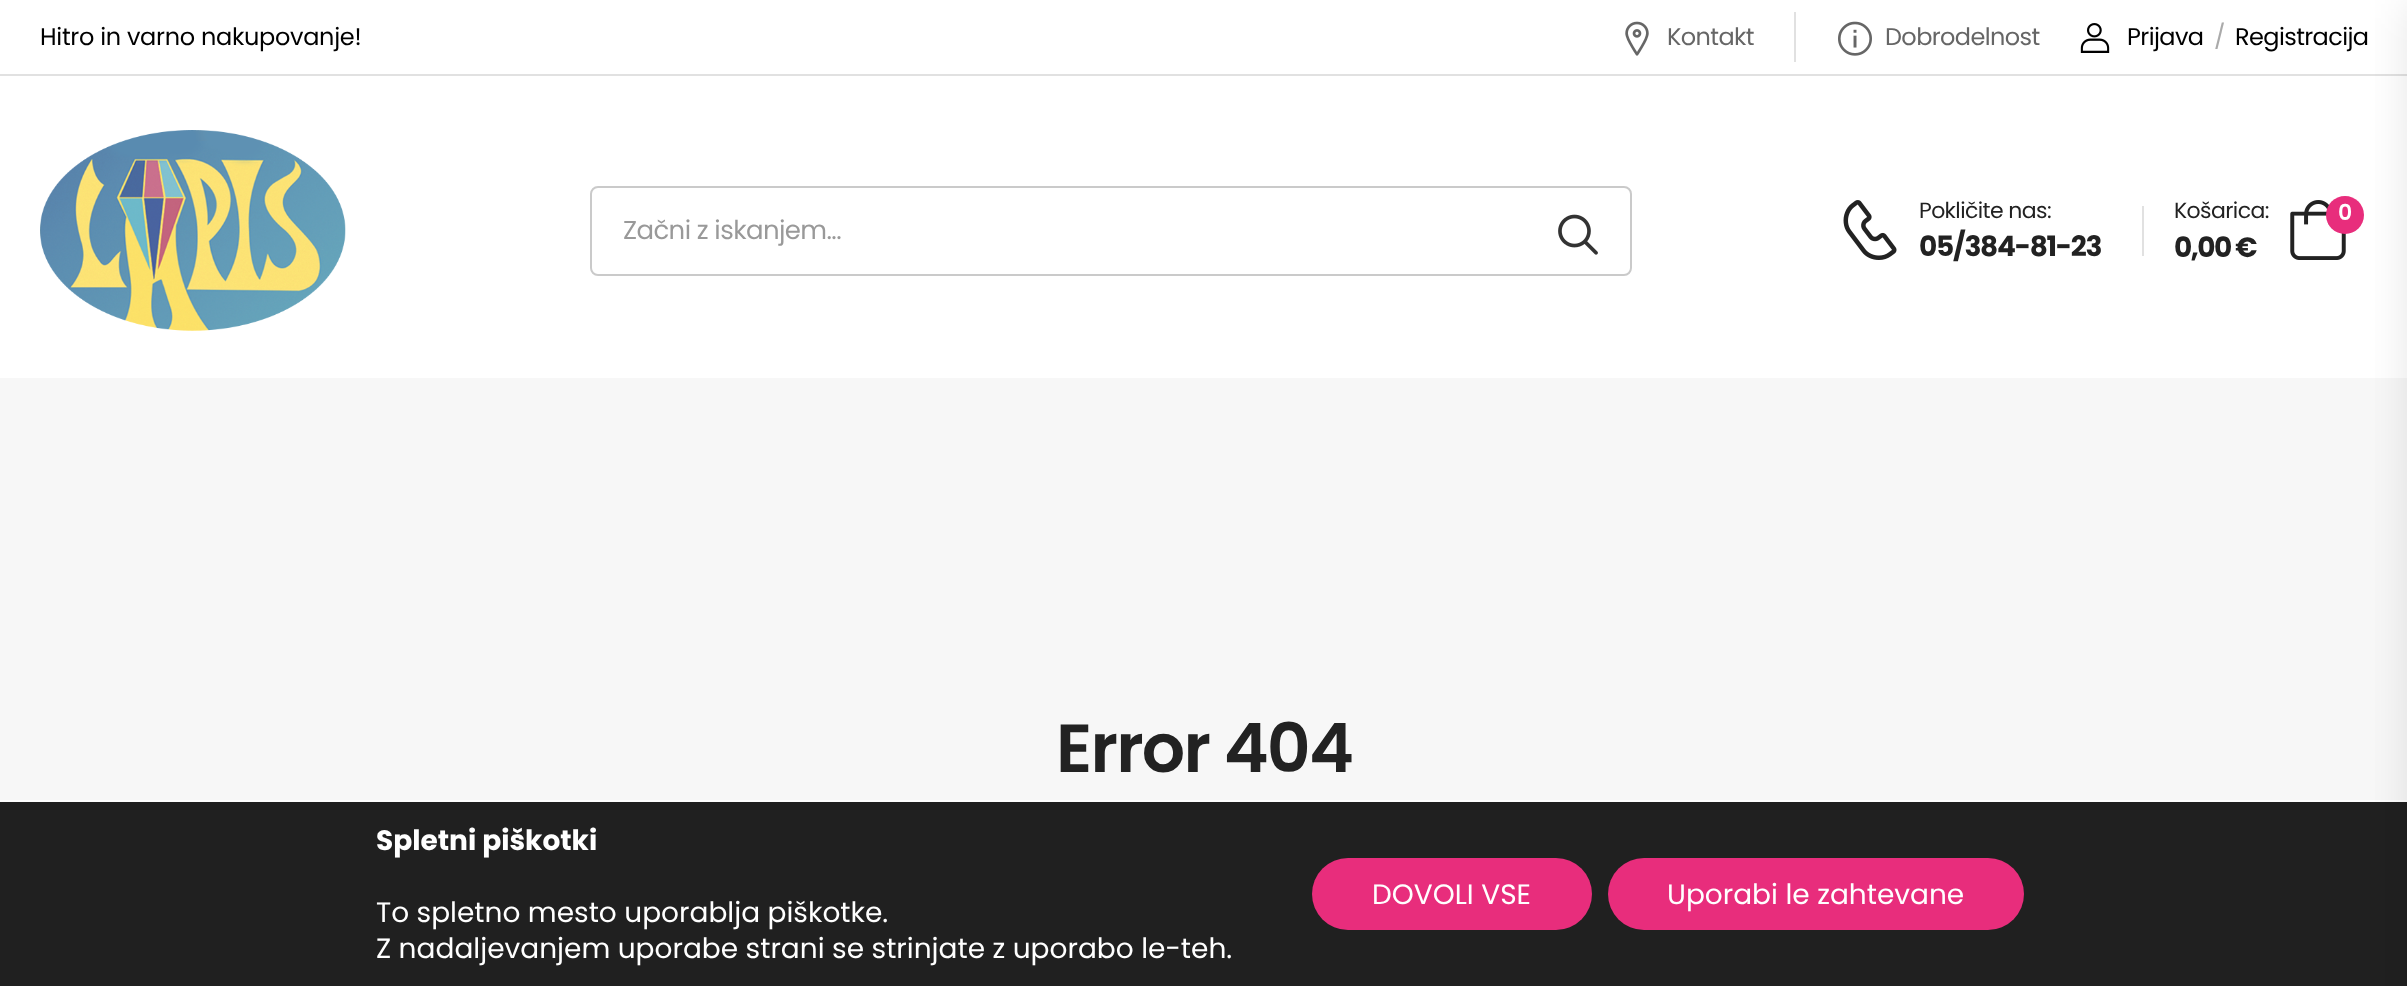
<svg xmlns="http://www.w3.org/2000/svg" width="2407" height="986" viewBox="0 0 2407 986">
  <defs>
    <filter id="blur1" x="-50%" y="-200%" width="200%" height="500%"><feGaussianBlur stdDeviation="22"/></filter>
  </defs>
  <rect width="100%" height="100%" fill="#ffffff"/>
  <rect x="0" y="74" width="2407" height="2" fill="#e1e1e1"/>
  <text x="40" y="45" font-family="Poppins" font-size="24" letter-spacing="-0.3" fill="#000000">Hitro in varno nakupovanje!</text>
  <image x="1625" y="21" width="24" height="35" href="img1.png"/>
  <text x="1667" y="45" font-family="Poppins" font-size="24" letter-spacing="-0.6" fill="#666666">Kontakt</text>
  <rect x="1794" y="12" width="2" height="50" fill="#e1e1e1"/>
  <image x="1838" y="21" width="34" height="35" href="img2.png"/>
  <text x="1885" y="45" font-family="Poppins" font-size="24" letter-spacing="-0.6" fill="#666666">Dobrodelnost</text>
  <image x="2080" y="23" width="30" height="30" href="img3.png"/>
  <text x="2127" y="45" font-family="Poppins" font-size="24" letter-spacing="-0.6" fill="#000000">Prijava</text>
  <text x="2214" y="45" font-family="Poppins" font-size="24" letter-spacing="-0.6" fill="#aaaaaa">/</text>
  <text x="2235" y="45" font-family="Poppins" font-size="24" letter-spacing="-0.6" fill="#000000">Registracija</text>
  <image x="40" y="130" width="306" height="201" href="img4.png"/>
  <rect x="591" y="187" width="1040" height="88" rx="7" fill="none" stroke="#cacaca" stroke-width="2"/>
  <text x="623" y="239" font-family="Poppins" font-size="26" letter-spacing="-0.6" fill="#999999">Začni z iskanjem...</text>
  <image x="1558" y="214" width="40" height="41" href="img5.png"/>
  <image x="1843" y="200" width="54" height="60" href="img6.png"/>
  <text x="1919" y="218" font-family="Poppins" font-size="22" letter-spacing="-0.6" fill="#222222">Pokličite nas:</text>
  <text x="1919" y="256" font-family="Poppins" font-size="28" font-weight="bold" letter-spacing="-1.25" fill="#222222">05/384-81-23</text>
  <rect x="2142" y="206" width="2" height="50" fill="#e1e1e1"/>
  <text x="2174" y="218" font-family="Poppins" font-size="22" letter-spacing="-0.6" fill="#222222">Košarica:</text>
  <text x="2174" y="257" font-family="Poppins" font-size="28" font-weight="bold" letter-spacing="-1.5" fill="#222222">0,00 €</text>
  <image x="2290" y="200" width="56" height="60" href="img7.png"/>
  <circle cx="2345" cy="215" r="19" fill="#e82d7c"/>
  <text x="2338" y="220" font-family="Poppins" font-size="22" font-weight="600" letter-spacing="-0.6" fill="#ffffff">0</text>
  <rect x="0" y="378" width="2407" height="422" fill="#f7f7f7"/>
  <rect x="0" y="802" width="2407" height="184" fill="#202020"/>
  <rect x="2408" y="4" width="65" height="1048" fill="#000000" fill-opacity="0.1" filter="url(#blur1)"/>
  <text x="1056" y="772" font-family="Poppins" font-size="68" font-weight="600" letter-spacing="-1.75" fill="#222222">Error 404</text>
  <text x="376" y="850" font-family="Poppins" font-size="28" font-weight="bold" fill="#ffffff">Spletni piškotki</text>
  <text x="376" y="922" font-family="Poppins" font-size="28" fill="#ffffff">To spletno mesto uporablja piškotke.</text>
  <text x="376" y="958" font-family="Poppins" font-size="28" fill="#ffffff">Z nadaljevanjem uporabe strani se strinjate z uporabo le-teh.</text>
  <rect x="1312" y="858" width="280" height="72" rx="36" fill="#e82d7c"/>
  <text x="1372" y="904" font-family="Poppins" font-size="28" fill="#ffffff">DOVOLI VSE</text>
  <rect x="1608" y="858" width="416" height="72" rx="36" fill="#e82d7c"/>
  <text x="1667" y="904" font-family="Poppins" font-size="28" fill="#ffffff">Uporabi le zahtevane</text>
</svg>
